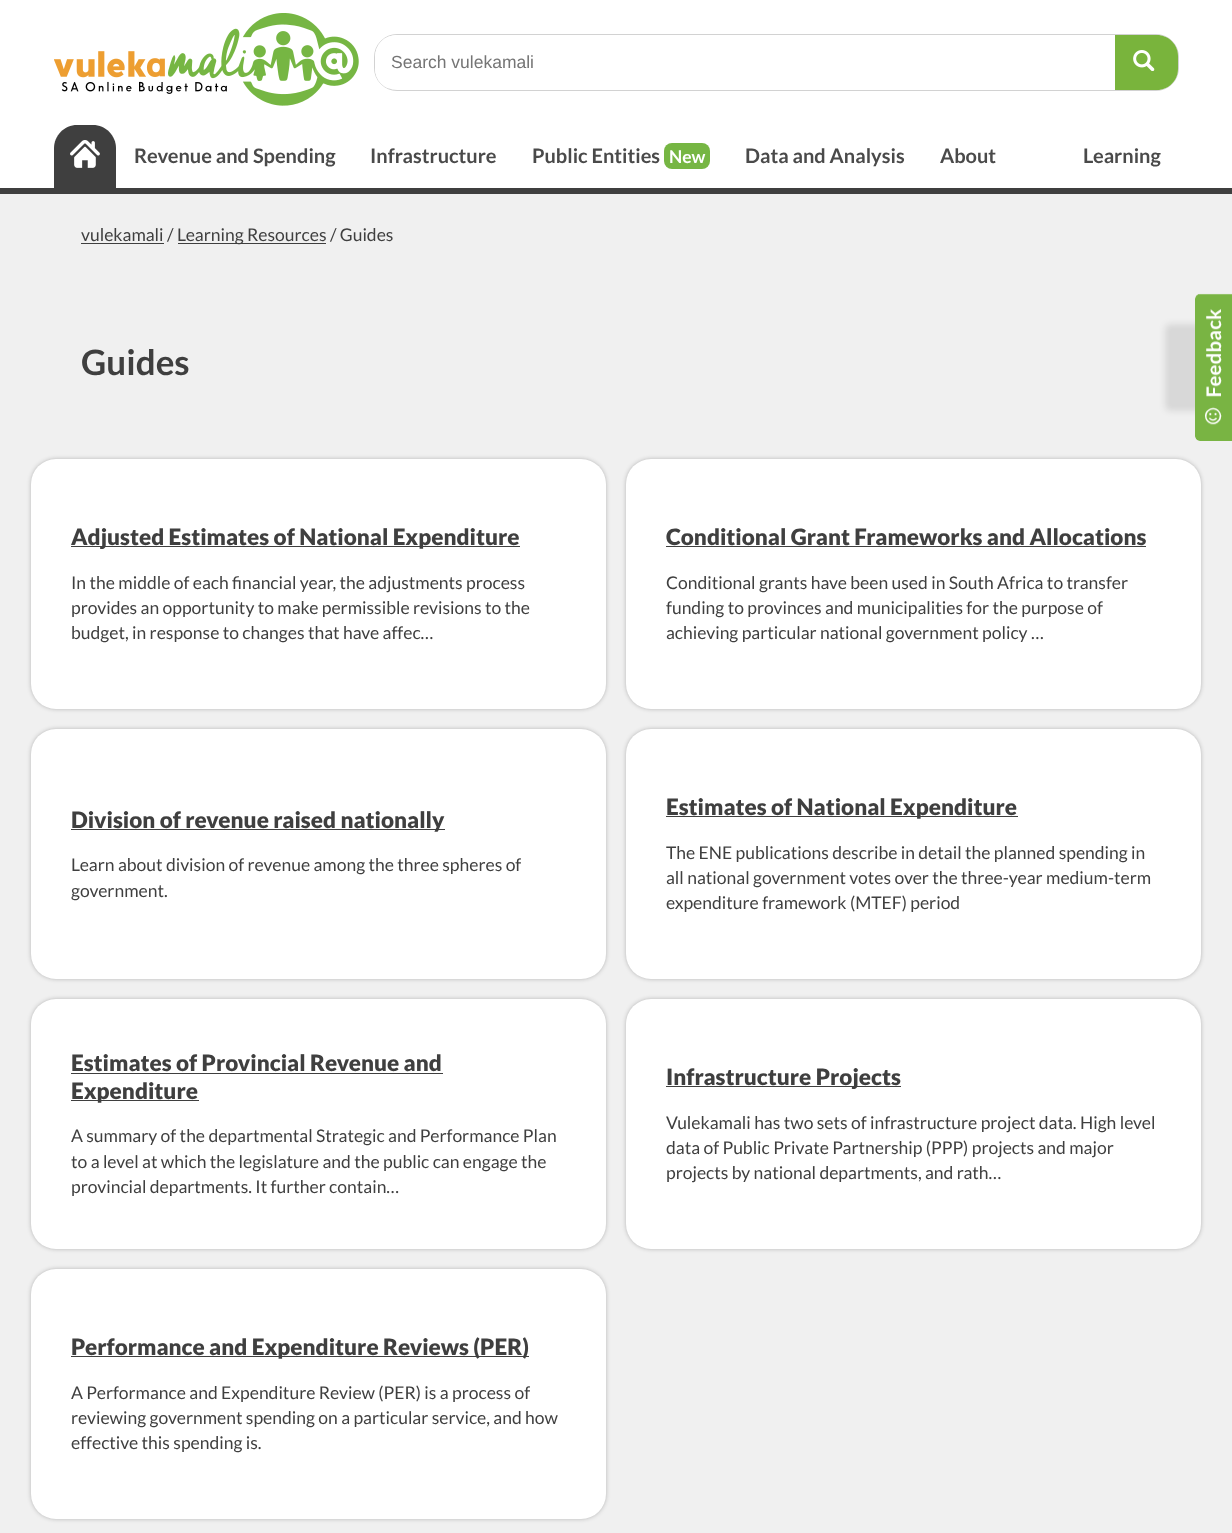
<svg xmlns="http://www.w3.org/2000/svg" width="1232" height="1533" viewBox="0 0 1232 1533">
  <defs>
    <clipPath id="clip1"><rect x="375" y="35" width="803" height="55" rx="21"/></clipPath>
    <filter id="blur1" x="-50%" y="-200%" width="200%" height="500%"><feGaussianBlur stdDeviation="2"/></filter>
    <filter id="blur2" x="-50%" y="-200%" width="200%" height="500%"><feGaussianBlur stdDeviation="3"/></filter>
  </defs>
  <rect width="100%" height="100%" fill="#f0f0f0"/>
  <rect x="0" y="0" width="1232" height="188" fill="#ffffff"/>
  <rect x="0" y="188" width="1232" height="6" fill="#3f3f3f"/>
  <image x="54" y="13" width="305" height="93" href="img1.png"/>
  <rect x="374.5" y="34.5" width="804" height="56" rx="22.5" fill="none" stroke="#d2d2d2"/>
  <g clip-path="url(#clip1)">
    <path d="M396 35H1115V88H375V56C375 44.5 384.5 35 396 35Z" fill="#ffffff"/>
  </g>
  <text x="391" y="68" font-family="Liberation Sans" font-size="17.5" fill="#757575">Search vulekamali</text>
  <path d="M1115 35H1157C1168.5 35 1178 44.5 1178 56V69C1178 80.5 1168.5 90 1157 90H1115Z" fill="#79b43c"/>
  <image x="1133" y="50" width="22" height="21" href="img2.png"/>
  <path d="M77 125H93C105.5 125 116 135.5 116 148V188H54V148C54 135.5 64.5 125 77 125Z" fill="#3f3f3f"/>
  <image x="70" y="140" width="30" height="28" href="img3.png"/>
  <text x="134" y="163" font-family="Lato" font-size="20" font-weight="bold" fill="#4a4a4a">Revenue and Spending</text>
  <text x="370" y="163" font-family="Lato" font-size="20" font-weight="bold" fill="#4a4a4a">Infrastructure</text>
  <text x="532" y="163" font-family="Lato" font-size="20" font-weight="bold" fill="#4a4a4a">Public Entities</text>
  <rect x="664" y="143" width="46" height="26" rx="8" fill="#76b643"/>
  <text x="669" y="163" font-family="Lato" font-size="17.5" font-weight="bold" fill="#ffffff">New</text>
  <text x="745" y="163" font-family="Lato" font-size="20" font-weight="bold" fill="#4a4a4a">Data and Analysis</text>
  <text x="940" y="163" font-family="Lato" font-size="20" font-weight="bold" fill="#4a4a4a">About</text>
  <text x="1083" y="163" font-family="Lato" font-size="20" font-weight="bold" fill="#4a4a4a">Learning</text>
  <text x="81" y="241" font-family="Lato" font-size="17.5" fill="#3f3f3f">vulekamali /</text>
  <rect x="81" y="243" width="83" height="1" fill="#3f3f3f"/>
  <rect x="178" y="243" width="148" height="1" fill="#3f3f3f"/>
  <text x="177" y="241" font-family="Lato" font-size="17.5" fill="#3f3f3f">Learning Resources / Guides</text>
  <text x="81" y="375" font-family="Lato" font-size="35" font-weight="bold" fill="#3f3f3f">Guides</text>
  <rect x="31" y="459" width="575" height="250" rx="25" fill="#000000" fill-opacity="0.25" filter="url(#blur1)"/>
  <rect x="31" y="459" width="575" height="250" rx="25" fill="#ffffff"/>
  <rect x="71" y="546" width="449" height="1" fill="#3f3f3f"/>
  <text x="71" y="545" font-family="Lato" font-size="22.5" font-weight="900" fill="#3f3f3f">Adjusted Estimates of National Expenditure</text>
  <text x="71" y="589" font-family="Lato" font-size="17.5" fill="#3f3f3f">In the middle of each financial year, the adjustments process</text>
  <text x="71" y="614" font-family="Lato" font-size="17.5" fill="#3f3f3f">provides an opportunity to make permissible revisions to the</text>
  <text x="71" y="639" font-family="Lato" font-size="17.5" fill="#3f3f3f">budget, in response to changes that have affec…</text>
  <rect x="626" y="459" width="575" height="250" rx="25" fill="#000000" fill-opacity="0.25" filter="url(#blur1)"/>
  <rect x="626" y="459" width="575" height="250" rx="25" fill="#ffffff"/>
  <text x="666" y="545" font-family="Lato" font-size="22.5" font-weight="900" fill="#3f3f3f">Conditional Grant Frameworks and Allocations</text>
  <rect x="666" y="546" width="480" height="1" fill="#3f3f3f"/>
  <text x="666" y="589" font-family="Lato" font-size="17.5" fill="#3f3f3f">Conditional grants have been used in South Africa to transfer</text>
  <text x="666" y="614" font-family="Lato" font-size="17.5" fill="#3f3f3f">funding to provinces and municipalities for the purpose of</text>
  <text x="666" y="639" font-family="Lato" font-size="17.5" fill="#3f3f3f">achieving particular national government policy …</text>
  <rect x="31" y="729" width="575" height="250" rx="25" fill="#000000" fill-opacity="0.25" filter="url(#blur1)"/>
  <rect x="31" y="729" width="575" height="250" rx="25" fill="#ffffff"/>
  <rect x="71" y="829" width="374" height="1" fill="#3f3f3f"/>
  <text x="71" y="828" font-family="Lato" font-size="22.5" font-weight="900" fill="#3f3f3f">Division of revenue raised nationally</text>
  <text x="71" y="871" font-family="Lato" font-size="17.5" fill="#3f3f3f">Learn about division of revenue among the three spheres of</text>
  <text x="71" y="897" font-family="Lato" font-size="17.5" fill="#3f3f3f">government.</text>
  <rect x="626" y="729" width="575" height="250" rx="25" fill="#000000" fill-opacity="0.25" filter="url(#blur1)"/>
  <rect x="626" y="729" width="575" height="250" rx="25" fill="#ffffff"/>
  <rect x="666" y="816" width="352" height="1" fill="#3f3f3f"/>
  <text x="666" y="815" font-family="Lato" font-size="22.5" font-weight="900" fill="#3f3f3f">Estimates of National Expenditure</text>
  <text x="666" y="859" font-family="Lato" font-size="17.5" fill="#3f3f3f">The ENE publications describe in detail the planned spending in</text>
  <text x="666" y="884" font-family="Lato" font-size="17.5" fill="#3f3f3f">all national government votes over the three-year medium-term</text>
  <text x="666" y="909" font-family="Lato" font-size="17.5" fill="#3f3f3f">expenditure framework (MTEF) period</text>
  <rect x="31" y="999" width="575" height="250" rx="25" fill="#000000" fill-opacity="0.25" filter="url(#blur1)"/>
  <rect x="31" y="999" width="575" height="250" rx="25" fill="#ffffff"/>
  <text x="71" y="1071" font-family="Lato" font-size="22.5" font-weight="900" fill="#3f3f3f">Estimates of Provincial Revenue and</text>
  <rect x="71" y="1073" width="372" height="1" fill="#3f3f3f"/>
  <rect x="71" y="1100" width="128" height="1" fill="#3f3f3f"/>
  <text x="71" y="1099" font-family="Lato" font-size="22.5" font-weight="900" fill="#3f3f3f">Expenditure</text>
  <text x="71" y="1142" font-family="Lato" font-size="17.5" fill="#3f3f3f">A summary of the departmental Strategic and Performance Plan</text>
  <text x="71" y="1168" font-family="Lato" font-size="17.5" fill="#3f3f3f">to a level at which the legislature and the public can engage the</text>
  <text x="71" y="1193" font-family="Lato" font-size="17.5" fill="#3f3f3f">provincial departments. It further contain…</text>
  <rect x="626" y="999" width="575" height="250" rx="25" fill="#000000" fill-opacity="0.25" filter="url(#blur1)"/>
  <rect x="626" y="999" width="575" height="250" rx="25" fill="#ffffff"/>
  <rect x="666" y="1086" width="235" height="1" fill="#3f3f3f"/>
  <text x="666" y="1085" font-family="Lato" font-size="22.5" font-weight="900" fill="#3f3f3f">Infrastructure Projects</text>
  <text x="666" y="1129" font-family="Lato" font-size="17.5" fill="#3f3f3f">Vulekamali has two sets of infrastructure project data. High level</text>
  <text x="666" y="1154" font-family="Lato" font-size="17.5" fill="#3f3f3f">data of Public Private Partnership (PPP) projects and major</text>
  <text x="666" y="1179" font-family="Lato" font-size="17.5" fill="#3f3f3f">projects by national departments, and rath…</text>
  <rect x="31" y="1269" width="575" height="250" rx="25" fill="#000000" fill-opacity="0.25" filter="url(#blur1)"/>
  <rect x="31" y="1269" width="575" height="250" rx="25" fill="#ffffff"/>
  <rect x="71" y="1356" width="458" height="1" fill="#3f3f3f"/>
  <text x="71" y="1355" font-family="Lato" font-size="22.5" font-weight="900" fill="#3f3f3f">Performance and Expenditure Reviews (PER)</text>
  <text x="71" y="1399" font-family="Lato" font-size="17.5" fill="#3f3f3f">A Performance and Expenditure Review (PER) is a process of</text>
  <text x="71" y="1424" font-family="Lato" font-size="17.5" fill="#3f3f3f">reviewing government spending on a particular service, and how</text>
  <text x="71" y="1449" font-family="Lato" font-size="17.5" fill="#3f3f3f">effective this spending is.</text>
  <rect x="1165" y="324" width="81" height="87" rx="5" fill="#000000" fill-opacity="0.1" filter="url(#blur2)"/>
  <image x="1195" y="293" width="37" height="148" href="img4.png"/>
</svg>
